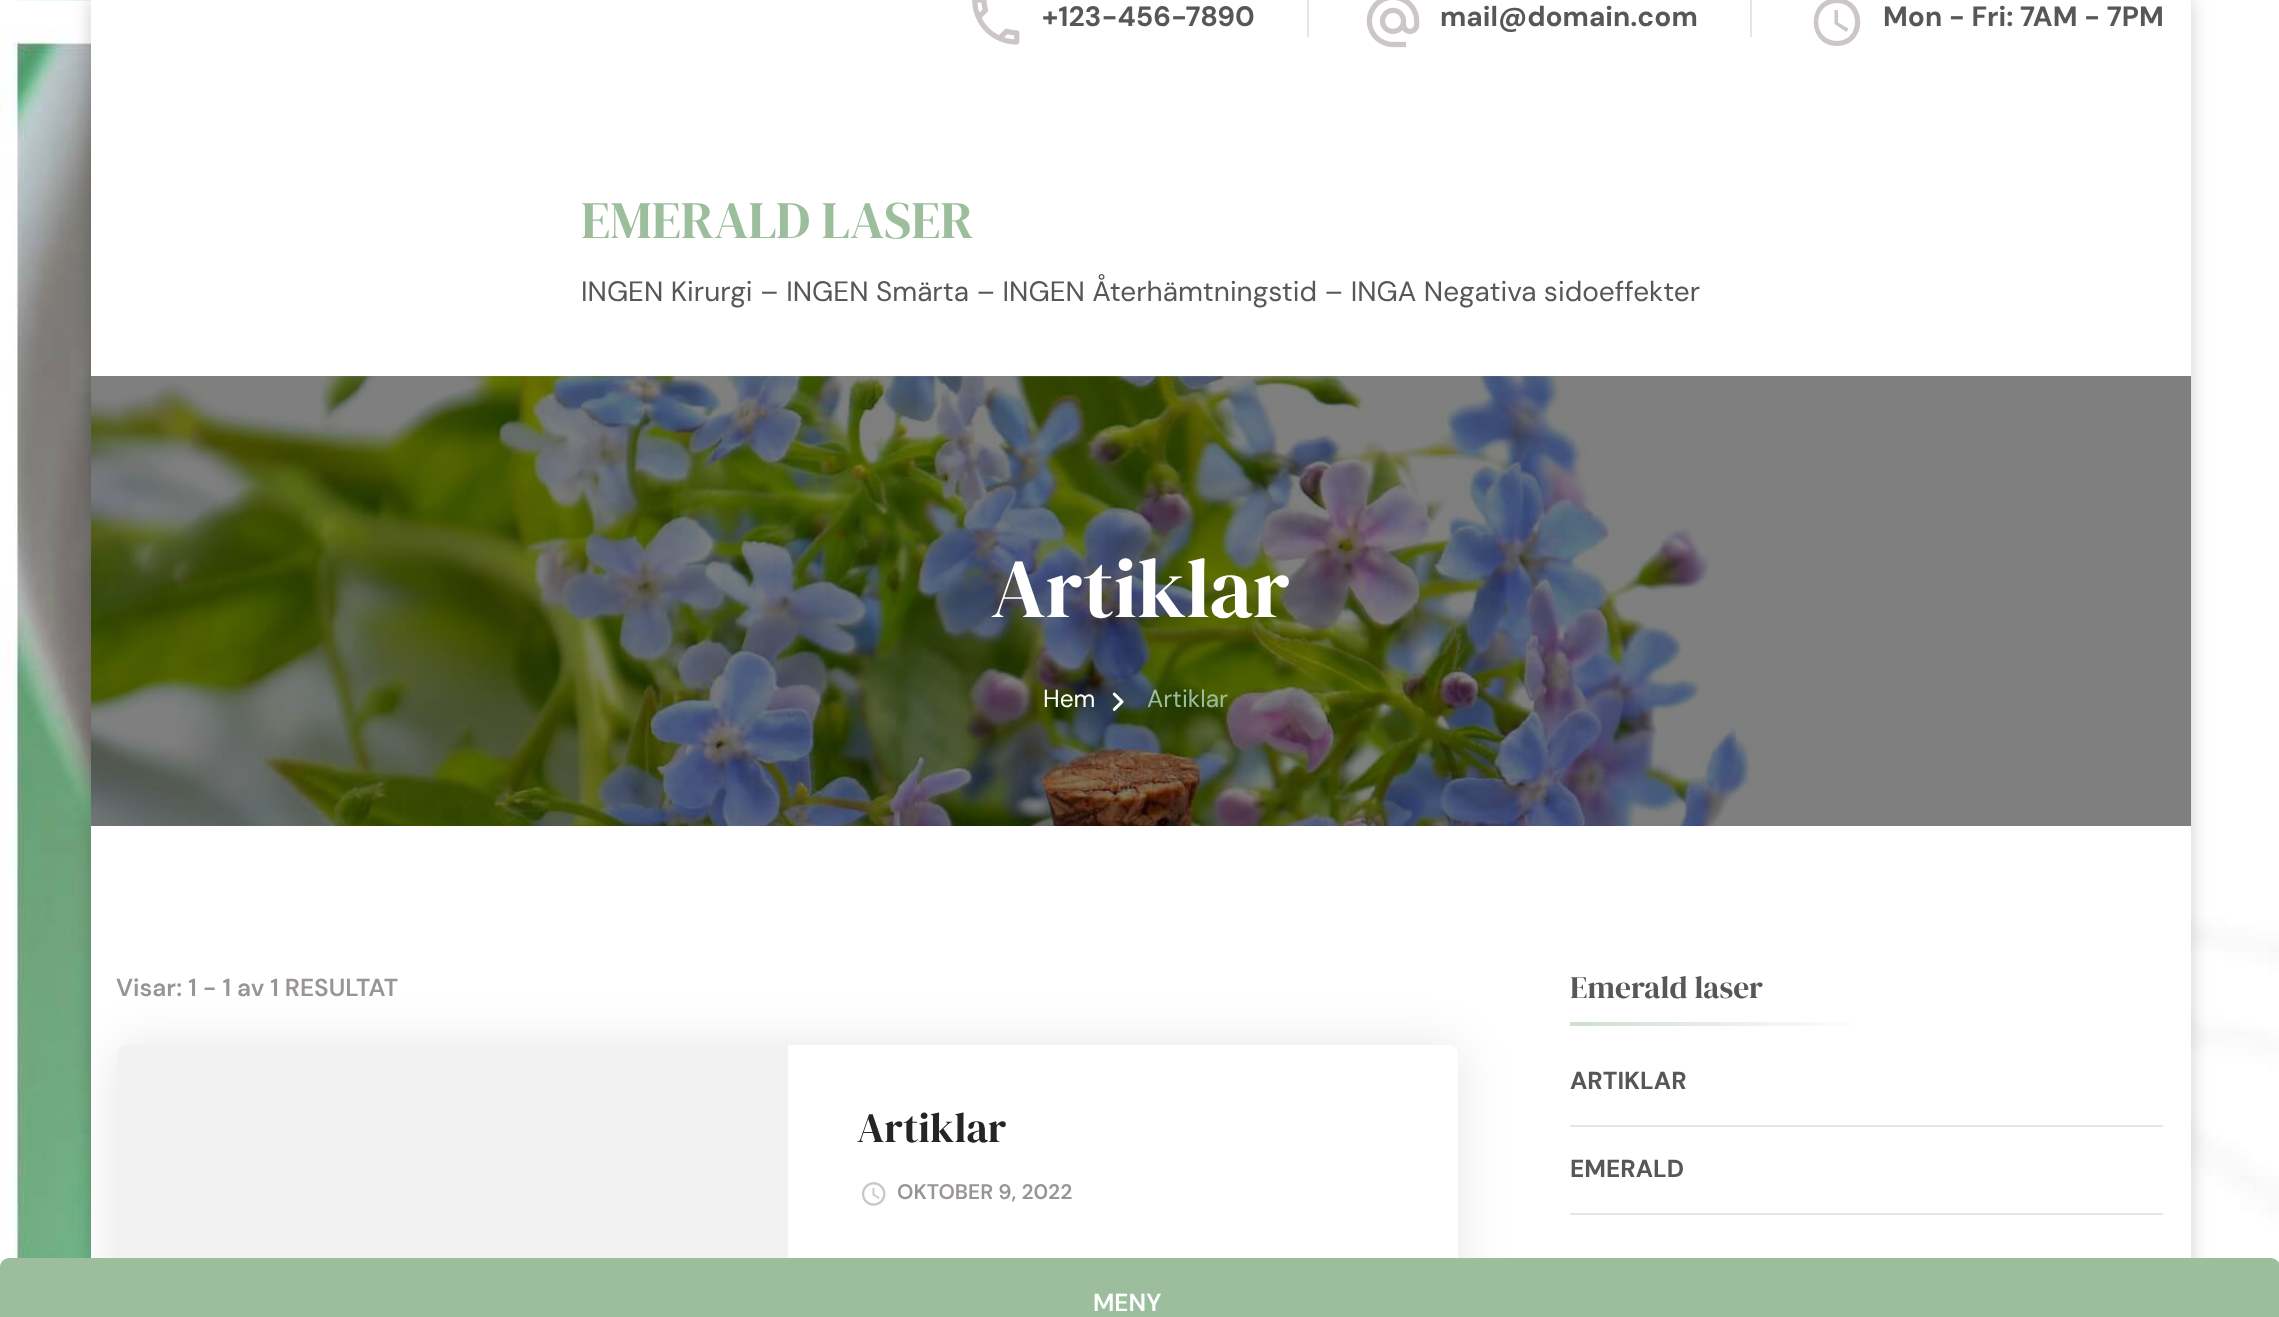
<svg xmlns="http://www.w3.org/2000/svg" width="2279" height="1317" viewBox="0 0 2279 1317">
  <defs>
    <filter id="blur1" x="-50%" y="-200%" width="200%" height="500%"><feGaussianBlur stdDeviation="9"/></filter>
    <clipPath id="clip1"><path d="M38 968H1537V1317H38ZM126 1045H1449C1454 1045 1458 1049 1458 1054V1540C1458 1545 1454 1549 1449 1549H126C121 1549 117 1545 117 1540V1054C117 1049 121 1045 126 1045Z" clip-rule="evenodd"/></clipPath>
    <filter id="blur2" x="-50%" y="-200%" width="200%" height="500%"><feGaussianBlur stdDeviation="26"/></filter>
    <clipPath id="clip2"><path d="M126 1045H788V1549H126C121 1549 117 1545 117 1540V1054C117 1049 121 1045 126 1045Z"/></clipPath>
    <linearGradient id="g1" gradientUnits="userSpaceOnUse" x1="1570" y1="1024" x2="2163" y2="1024"><stop offset="0" stop-color="#cedfce"/><stop offset="0.5" stop-color="#ffffff"/></linearGradient>
  </defs>
  <rect width="100%" height="100%" fill="#ffffff"/>
  <image x="0" y="0" width="2279" height="1267" href="img1.png"/>
  <rect x="91" y="0" width="2100" height="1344" fill="#000000" fill-opacity="0.2" filter="url(#blur1)"/>
  <rect x="91" y="0" width="2100" height="1258" fill="#ffffff"/>
  <image x="972" y="0" width="48" height="45" href="img2.png"/>
  <text x="1042" y="26" font-family="DM Sans" font-size="28" font-weight="bold" fill="#585656">+123-456-7890</text>
  <rect x="1307" y="0" width="2" height="37" fill="#e6e6e6"/>
  <image x="1366" y="0" width="54" height="48" href="img3.png"/>
  <text x="1440" y="26" font-family="DM Sans" font-size="28" font-weight="bold" fill="#585656">mail@domain.com</text>
  <rect x="1750" y="0" width="2" height="37" fill="#e6e6e6"/>
  <path d="M1837-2C1806-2 1806 46 1837 46C1868 46 1868-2 1837-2ZM1837 41C1812 41 1812 3 1837 3C1861 3 1861 41 1837 41Z" fill="#ccc6c8"/>
  <path d="M1838 10H1834.5V24L1846.5 32L1848.5 28.5L1838 22.5Z" fill="#ccc6c8"/>
  <text x="1883" y="26" font-family="DM Sans" font-size="28" font-weight="bold" fill="#585656">Mon - Fri: 7AM - 7PM</text>
  <text x="581" y="238" font-family="DM Serif Display" font-size="52.5" fill="#9cbe9c">EMERALD LASER</text>
  <text x="581" y="301" font-family="DM Sans" font-size="28" fill="#585656">INGEN Kirurgi – INGEN Smärta – INGEN Återhämtningstid – INGA Negativa sidoeffekter</text>
  <g clip-path="url(#clip1)">
    <rect x="117" y="1047" width="1341" height="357" rx="9" fill="#000000" fill-opacity="0.1" filter="url(#blur2)"/>
  </g>
  <g clip-path="url(#clip2)">
    <path d="M126 1045H788V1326H117V1054C117 1049 121 1045 126 1045Z" fill="#f2f2f2"/>
  </g>
  <rect x="0" y="1258" width="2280" height="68" rx="9" fill="#9cbe9c"/>
  <text x="1093" y="1311" font-family="DM Sans" font-size="24.5" font-weight="600" fill="#ffffff">MENY</text>
  <image x="91" y="376" width="1662" height="450" href="img4.png"/>
  <rect x="91" y="376" width="2100" height="450" fill="#000000" fill-opacity="0.5"/>
  <text x="991" y="617" font-family="DM Serif Display" font-size="84" fill="#ffffff">Artiklar</text>
  <text x="1043" y="707" font-family="DM Sans" font-size="24.5" fill="#ffffff">Hem</text>
  <image x="1112" y="692" width="12" height="19" href="img5.png"/>
  <text x="1147" y="707" font-family="DM Sans" font-size="24.5" fill="#9cbe9c">Artiklar</text>
  <text x="116" y="996" font-family="DM Sans" font-size="24.5" font-weight="600" fill="#999596">Visar: 1 - 1 av 1 RESULTAT</text>
  <text x="857" y="1142" font-family="DM Serif Display" font-size="42" fill="#262525">Artiklar</text>
  <image x="861" y="1182" width="25" height="24" href="img6.png"/>
  <text x="897" y="1199" font-family="DM Sans" font-size="21" font-weight="600" fill="#999596">OKTOBER 9, 2022</text>
  <text x="1570" y="998" font-family="DM Serif Display" font-size="31.5" fill="#585656">Emerald laser</text>
  <rect x="1570" y="1022" width="281" height="4" fill="url(#g1)"/>
  <rect x="1570" y="1125" width="593" height="2" fill="#e6e6e6"/>
  <text x="1570" y="1089" font-family="DM Sans" font-size="24.5" font-weight="bold" fill="#585656">ARTIKLAR</text>
  <rect x="1570" y="1213" width="593" height="2" fill="#e6e6e6"/>
  <text x="1570" y="1177" font-family="DM Sans" font-size="24.5" font-weight="bold" fill="#585656">EMERALD</text>
</svg>
